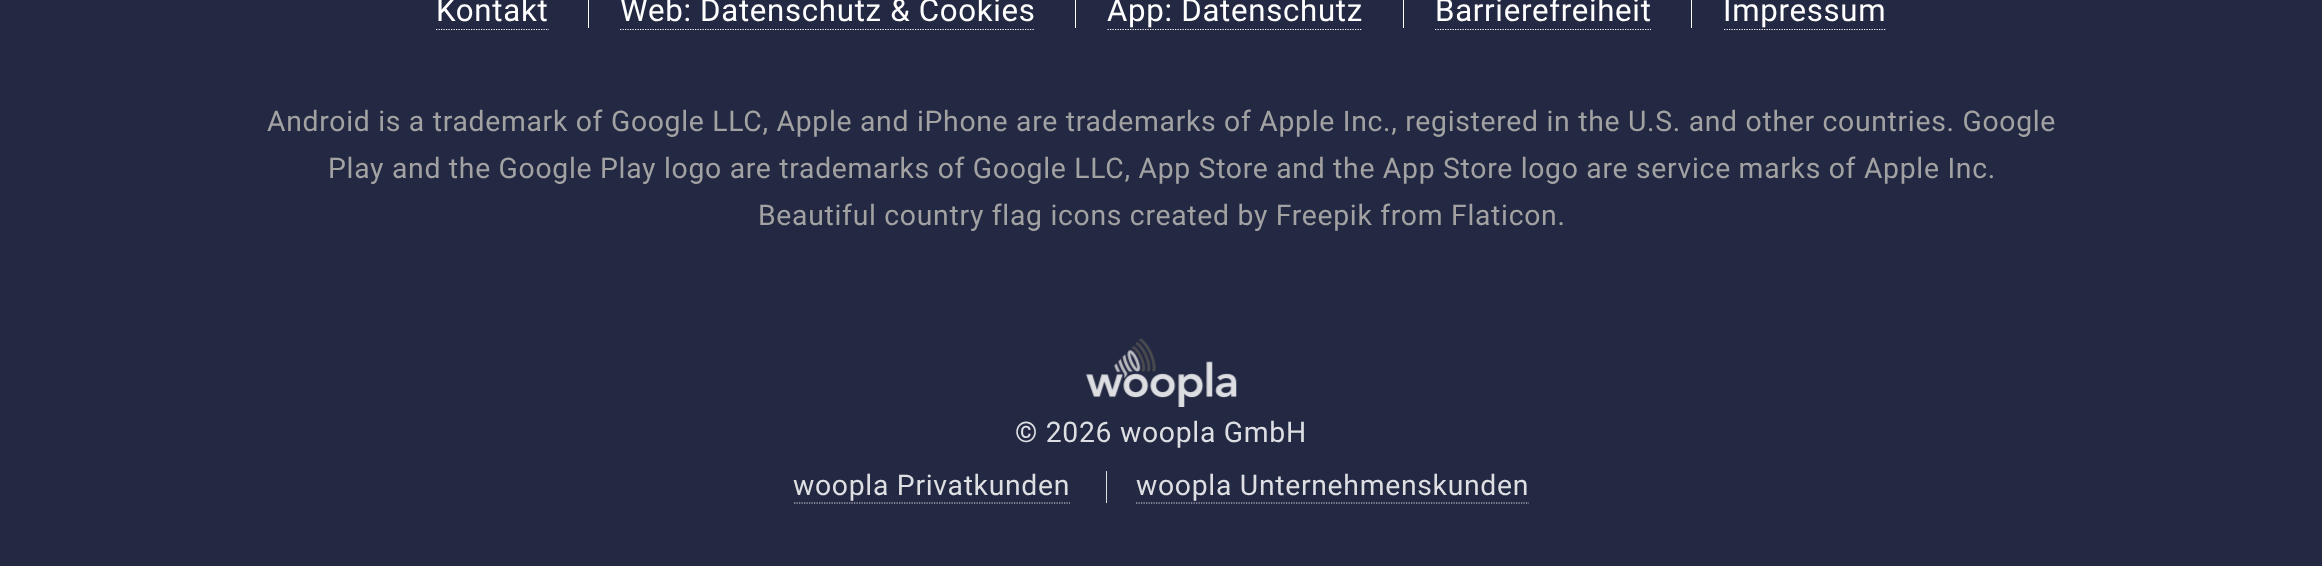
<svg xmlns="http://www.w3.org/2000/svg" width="2322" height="566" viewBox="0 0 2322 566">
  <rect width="100%" height="100%" fill="#242943"/>
  <text x="436" y="21" font-family="Roboto" font-size="31.2" letter-spacing="0.71" fill="#ffffff">Kontakt</text>
  <path d="M436 29.5H549" fill="none" stroke="#ffffff" stroke-width="1.2" stroke-dasharray="1.25 1.25"/>
  <rect x="588" y="0" width="1" height="28" fill="#ffffff"/>
  <text x="620" y="21" font-family="Roboto" font-size="31.2" letter-spacing="0.71" fill="#ffffff">Web: Datenschutz &amp; Cookies</text>
  <path d="M620 29.5H1035" fill="none" stroke="#ffffff" stroke-width="1.2" stroke-dasharray="1.25 1.25"/>
  <rect x="1075" y="0" width="1" height="28" fill="#ffffff"/>
  <text x="1107" y="21" font-family="Roboto" font-size="31.2" letter-spacing="0.71" fill="#ffffff">App: Datenschutz</text>
  <path d="M1107.5 29.5H1362.5" fill="none" stroke="#ffffff" stroke-width="1.2" stroke-dasharray="1.25 1.25"/>
  <rect x="1403" y="0" width="1" height="28" fill="#ffffff"/>
  <text x="1435" y="21" font-family="Roboto" font-size="31.2" letter-spacing="0.71" fill="#ffffff">Barrierefreiheit</text>
  <path d="M1435 29.5H1651" fill="none" stroke="#ffffff" stroke-width="1.2" stroke-dasharray="1.25 1.25"/>
  <rect x="1691" y="0" width="1" height="28" fill="#ffffff"/>
  <text x="1723" y="21" font-family="Roboto" font-size="31.2" letter-spacing="0.71" fill="#ffffff">Impressum</text>
  <path d="M1724 29.5H1886" fill="none" stroke="#ffffff" stroke-width="1.2" stroke-dasharray="1.25 1.25"/>
  <text x="267" y="131" font-family="Roboto" font-size="28.33" letter-spacing="0.71" fill="#a2a2a2">Android is a trademark of Google LLC, Apple and iPhone are trademarks of Apple Inc., registered in the U.S. and other countries. Google</text>
  <text x="328" y="178" font-family="Roboto" font-size="28.33" letter-spacing="0.71" fill="#a2a2a2">Play and the Google Play logo are trademarks of Google LLC, App Store and the App Store logo are service marks of Apple Inc.</text>
  <text x="758" y="225" font-family="Roboto" font-size="28.33" letter-spacing="0.71" fill="#a2a2a2">Beautiful country flag icons created by Freepik from Flaticon.</text>
  <image x="1086" y="338" width="151" height="69" href="img1.png"/>
  <text x="1015" y="442" font-family="Roboto" font-size="28.33" letter-spacing="0.71" fill="#dedfe3">© 2026 woopla GmbH</text>
  <text x="793" y="495" font-family="Roboto" font-size="28.33" letter-spacing="0.71" fill="#dedfe3">woopla Privatkunden</text>
  <path d="M794 503H1070" fill="none" stroke="#dedfe3" stroke-width="1.2" stroke-dasharray="1.25 1.25"/>
  <rect x="1106" y="471" width="1" height="32" fill="#dedfe3"/>
  <text x="1136" y="495" font-family="Roboto" font-size="28.33" letter-spacing="0.71" fill="#dedfe3">woopla Unternehmenskunden</text>
  <path d="M1136 503H1529" fill="none" stroke="#dedfe3" stroke-width="1.2" stroke-dasharray="1.25 1.25"/>
</svg>
